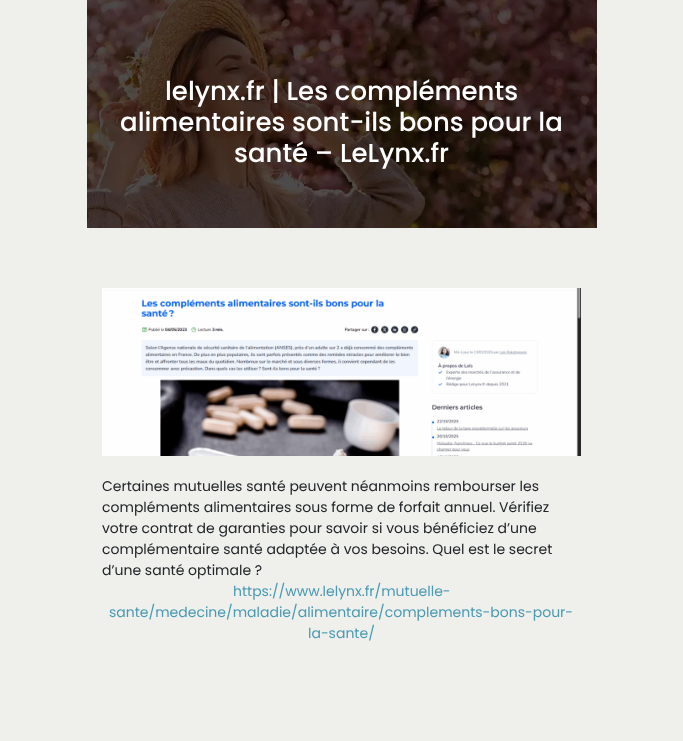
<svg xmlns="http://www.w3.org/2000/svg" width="683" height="741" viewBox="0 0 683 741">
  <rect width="100%" height="100%" fill="#efefeb"/>
  <image x="87" y="0" width="510" height="228" href="img1.png"/>
  <text x="165" y="100" font-family="Poppins" font-size="26" font-weight="500" fill="#ffffff">lelynx.fr | Les compléments</text>
  <text x="120" y="131" font-family="Poppins" font-size="26" font-weight="500" fill="#ffffff">alimentaires sont-ils bons pour la</text>
  <text x="234" y="162" font-family="Poppins" font-size="26" font-weight="500" fill="#ffffff">santé – LeLynx.fr</text>
  <image x="102" y="288" width="479" height="168" href="img2.png"/>
  <text x="102" y="491" font-family="Poppins" font-size="14" fill="#212529">Certaines mutuelles santé peuvent néanmoins rembourser les</text>
  <text x="102" y="512" font-family="Poppins" font-size="14" fill="#212529">compléments alimentaires sous forme de forfait annuel. Vérifiez</text>
  <text x="102" y="533" font-family="Poppins" font-size="14" fill="#212529">votre contrat de garanties pour savoir si vous bénéficiez d’une</text>
  <text x="102" y="554" font-family="Poppins" font-size="14" fill="#212529">complémentaire santé adaptée à vos besoins. Quel est le secret</text>
  <text x="102" y="575" font-family="Poppins" font-size="14" fill="#212529">d’une santé optimale ?</text>
  <text x="233" y="596" font-family="Poppins" font-size="14" fill="#499ab3">https://www.lelynx.fr/mutuelle-</text>
  <text x="109" y="617" font-family="Poppins" font-size="14" fill="#499ab3">sante/medecine/maladie/alimentaire/complements-bons-pour-</text>
  <text x="308" y="638" font-family="Poppins" font-size="14" fill="#499ab3">la-sante/</text>
</svg>
